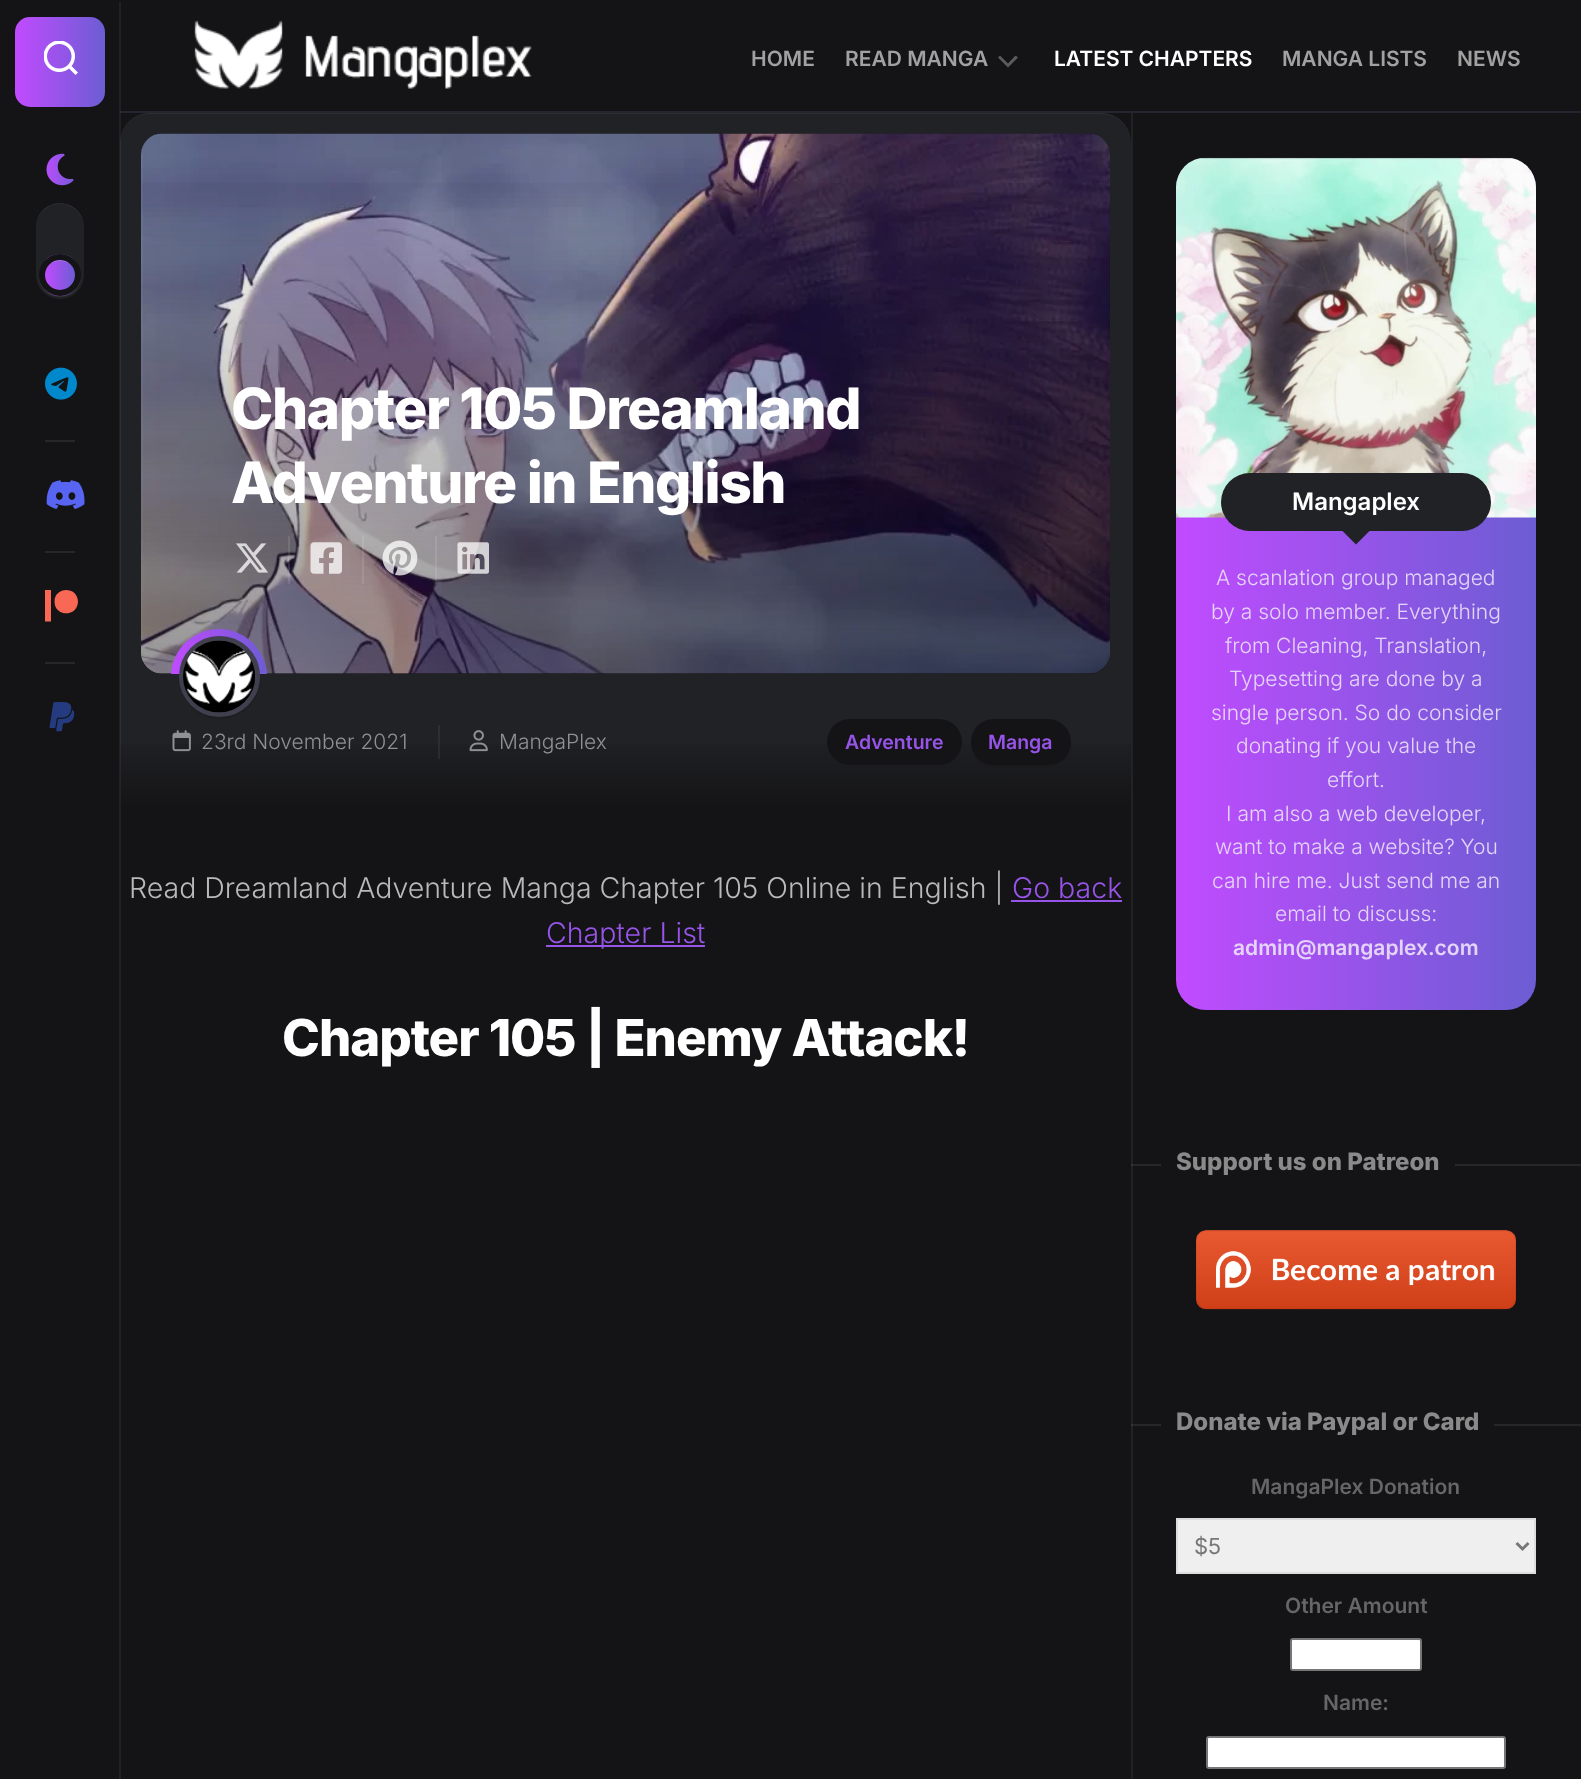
<svg xmlns="http://www.w3.org/2000/svg" width="1581" height="1779" viewBox="0 0 1581 1779">
  <defs>
    <linearGradient id="g1" gradientUnits="userSpaceOnUse" x1="626" y1="807" x2="626" y2="732"><stop offset="0" stop-color="#141416"/><stop offset="1" stop-color="#212226"/></linearGradient>
    <linearGradient id="g2" gradientUnits="userSpaceOnUse" x1="15" y1="62" x2="105" y2="62"><stop offset="0" stop-color="#c14bff"/><stop offset="1" stop-color="#6c5dd3"/></linearGradient>
    <clipPath id="clip1"><rect x="39" y="254" width="42" height="42" rx="21"/></clipPath>
    <linearGradient id="g3" gradientUnits="userSpaceOnUse" x1="45" y1="275" x2="75" y2="275"><stop offset="0" stop-color="#c14bff"/><stop offset="1" stop-color="#6c5dd3"/></linearGradient>
    <clipPath id="clip2"><rect x="998" y="56" width="21" height="12"/></clipPath>
    <linearGradient id="g4" gradientUnits="userSpaceOnUse" x1="626" y1="807" x2="626" y2="732"><stop offset="0" stop-color="#222224"/><stop offset="1" stop-color="#2e2f33"/></linearGradient>
    <linearGradient id="g5" gradientUnits="userSpaceOnUse" x1="171" y1="677" x2="267" y2="677"><stop offset="0" stop-color="#c14bff"/><stop offset="1" stop-color="#6c5dd3"/></linearGradient>
    <linearGradient id="g6" gradientUnits="userSpaceOnUse" x1="1176" y1="584" x2="1536" y2="584"><stop offset="0" stop-color="#c14bff"/><stop offset="1" stop-color="#6c5dd3"/></linearGradient>
  </defs>
  <rect width="100%" height="100%" fill="#141416"/>
  <rect x="1131" y="1424" width="450" height="2" fill="#272729"/>
  <rect x="1131" y="1164" width="450" height="2" fill="#272729"/>
  <rect x="120" y="111" width="1461" height="2" fill="#23262f"/>
  <rect x="120" y="113" width="1011" height="694" rx="30" fill="#212226"/>
  <path d="M150 114H1101C1118 114 1131 127 1131 144V143C1131 126 1118 113 1101 113H150C133 113 120 126 120 143V144C120 127 133 114 150 114Z" fill="#ffffff" fill-opacity="0.06"/>
  <rect x="120" y="744" width="1011" height="63" fill="url(#g1)"/>
  <rect x="119" y="2" width="2" height="1777" fill="#ffffff" fill-opacity="0.06"/>
  <rect x="15" y="17" width="90" height="90" rx="15" fill="url(#g2)"/>
  <image x="44" y="41" width="34" height="34" href="img1.png"/>
  <image x="46" y="153" width="28" height="33" href="img2.png"/>
  <rect x="36" y="203" width="48" height="96" rx="24" fill="#212226"/>
  <path d="M60 204C73 204 84 215 84 228C84 195 36 195 36 228C36 215 47 204 60 204Z" fill="#ffffff" fill-opacity="0.06"/>
  <path d="M39 275C38 304 82 304 81 275C80 302 40 302 39 275Z" fill="#37383c"/>
  <g clip-path="url(#clip1)">
    <rect x="45" y="254" width="30" height="42" fill="url(#g3)"/>
  </g>
  <path d="M60 261C70 261 75 268 75 275.5C75 272.5 74 269 72.5 266.5C64 254 44.5 260.5 45 275.5C45 268 50 261 60 261Z" fill="#ffffff" fill-opacity="0.2"/>
  <circle cx="60" cy="275" r="18" fill="none" stroke="#141416" stroke-width="6"/>
  <image x="45" y="367" width="32" height="33" href="img3.png"/>
  <rect x="45" y="440" width="30" height="2" fill="#272729"/>
  <image x="46" y="480" width="39" height="29" href="img4.png"/>
  <rect x="45" y="551" width="30" height="2" fill="#272729"/>
  <path d="M78 601.5C77.5 617.5 54.5 617 54.5 601.5C54.5 586.5 77.5 586 78 601.5ZM45 621.5H51V590H45Z" fill="#f96854"/>
  <rect x="45" y="662" width="30" height="2" fill="#272729"/>
  <image x="49" y="702" width="26" height="30" href="img5.png"/>
  <image x="194" y="20" width="338" height="69" href="img6.png"/>
  <text x="751" y="66" font-family="Inter" font-size="21" font-weight="600" fill="#a1a1a2">HOME</text>
  <text x="845" y="66" font-family="Inter" font-size="21" font-weight="600" fill="#a1a1a2">READ MANGA</text>
  <g clip-path="url(#clip2)">
    <path d="M1008 63.5L1015.5 55.5L1018 57.5L1008 67.5L998 57.5L1000 55.5Z" fill="#5b5b5c" fill-rule="evenodd"/>
  </g>
  <text x="1054" y="66" font-family="Inter" font-size="21" font-weight="600" fill="#ffffff">LATEST CHAPTERS</text>
  <text x="1282" y="66" font-family="Inter" font-size="21" font-weight="600" fill="#a1a1a2">MANGA LISTS</text>
  <text x="1457" y="66" font-family="Inter" font-size="21" font-weight="600" fill="#a1a1a2">NEWS</text>
  <rect x="438" y="725" width="2" height="7" fill="#2e2f33"/>
  <rect x="141" y="134" width="969" height="540" rx="21" fill="#141416"/>
  <image x="141" y="133" width="969" height="541" href="img7.png"/>
  <image x="141" y="183" width="969" height="491" href="img8.png"/>
  <text x="231" y="429" font-family="Inter" font-size="57" font-weight="800" letter-spacing="-1.5" fill="#ffffff">Chapter 105 Dreamland</text>
  <text x="231" y="503" font-family="Inter" font-size="57" font-weight="800" letter-spacing="-1.5" fill="#ffffff">Adventure in English</text>
  <image x="236" y="543" width="32" height="30" href="img9.png"/>
  <rect x="288" y="536" width="2" height="48" fill="#ffffff" fill-opacity="0.1"/>
  <image x="310" y="542" width="32" height="32" href="img10.png"/>
  <rect x="362" y="536" width="2" height="48" fill="#ffffff" fill-opacity="0.1"/>
  <image x="382" y="540" width="36" height="36" href="img11.png"/>
  <rect x="435" y="536" width="2" height="48" fill="#ffffff" fill-opacity="0.1"/>
  <image x="457" y="542" width="32" height="32" href="img12.png"/>
  <rect x="438" y="732" width="2" height="27" fill="url(#g4)"/>
  <circle cx="219" cy="677" r="48" fill="url(#g5)"/>
  <rect x="171" y="674" width="96" height="51" fill="#212226"/>
  <path d="M180 687C182 696 187 704 194 710C225 735 269 705 259 668C260 676 260 685 256 692C241 727 190 724 180 687Z" fill="#000000" fill-opacity="0.1"/>
  <circle cx="219.5" cy="676.5" r="38" fill="#141416" stroke="#3f3f4d" stroke-width="5"/>
  <image x="183" y="640" width="72" height="73" href="img13.png"/>
  <image x="172" y="730" width="19" height="22" href="img14.png"/>
  <text x="201" y="749" font-family="Inter" font-size="21" font-weight="300" fill="#8f9091">23rd November 2021</text>
  <image x="469" y="730" width="19" height="22" href="img15.png"/>
  <text x="499" y="749" font-family="Inter" font-size="21" font-weight="300" fill="#8f9091">MangaPlex</text>
  <rect x="827" y="719" width="135" height="46" rx="23" fill="#141416"/>
  <text x="845" y="749" font-family="Inter" font-size="19.5" font-weight="600" fill="#9754e9">Adventure</text>
  <path d="M972 749C974 759 983 767 994 767H1048C1060 767 1071 756 1071 744V743C1071 755 1060 765 1048 765H994C983 765 975 758 972 749Z" fill="#1a1a1d"/>
  <rect x="971" y="719" width="100" height="46" rx="23" fill="#141416"/>
  <text x="988" y="749" font-family="Inter" font-size="19.5" font-weight="600" fill="#9754e9">Manga</text>
  <text x="129" y="898" font-family="Inter" font-size="28.5" font-weight="300" fill="#b9b9b9">Read Dreamland Adventure Manga Chapter 105 Online in English |</text>
  <text x="1012" y="898" font-family="Inter" font-size="28.5" font-weight="300" fill="#9754e9">Go back</text>
  <rect x="1011" y="900" width="111" height="2" fill="#9754e9"/>
  <rect x="546" y="945" width="159" height="2" fill="#9754e9"/>
  <text x="546" y="943" font-family="Inter" font-size="28.5" font-weight="300" fill="#9754e9">Chapter List</text>
  <text x="282" y="1056" font-family="Inter" font-size="51" font-weight="800" letter-spacing="-1.05" fill="#ffffff">Chapter 105 | Enemy Attack!</text>
  <rect x="1131" y="113" width="2" height="1666" fill="#222224"/>
  <rect x="1131" y="1424" width="2" height="2" fill="#343436"/>
  <rect x="1131" y="1164" width="2" height="2" fill="#343436"/>
  <rect x="1176" y="158" width="360" height="852" rx="30" fill="url(#g6)"/>
  <image x="1176" y="157" width="360" height="361" href="img16.png"/>
  <rect x="1221" y="473" width="270" height="58" rx="29" fill="#212226"/>
  <text x="1292" y="510" font-family="Inter" font-size="24" font-weight="600" fill="#ffffff">Mangaplex</text>
  <path d="M1341 529.5H1371L1356 544.5Z" fill="#212226"/>
  <text x="1216" y="585" font-family="Inter" font-size="21" font-weight="300" fill="#e5d4f9">A scanlation group managed</text>
  <text x="1211" y="619" font-family="Inter" font-size="21" font-weight="300" fill="#e5d4f9">by a solo member. Everything</text>
  <text x="1225" y="653" font-family="Inter" font-size="21" font-weight="300" fill="#e5d4f9">from Cleaning, Translation,</text>
  <text x="1229" y="686" font-family="Inter" font-size="21" font-weight="300" fill="#e5d4f9">Typesetting are done by a</text>
  <text x="1211" y="720" font-family="Inter" font-size="21" font-weight="300" fill="#e5d4f9">single person. So do consider</text>
  <text x="1236" y="753" font-family="Inter" font-size="21" font-weight="300" fill="#e5d4f9">donating if you value the</text>
  <text x="1327" y="787" font-family="Inter" font-size="21" font-weight="300" fill="#e5d4f9">effort.</text>
  <text x="1226" y="821" font-family="Inter" font-size="21" font-weight="300" fill="#e5d4f9">I am also a web developer,</text>
  <text x="1215" y="854" font-family="Inter" font-size="21" font-weight="300" fill="#e5d4f9">want to make a website? You</text>
  <text x="1212" y="888" font-family="Inter" font-size="21" font-weight="300" fill="#e5d4f9">can hire me. Just send me an</text>
  <text x="1275" y="921" font-family="Inter" font-size="21" font-weight="300" fill="#e5d4f9">email to discuss:</text>
  <text x="1233" y="955" font-family="Inter" font-size="21" font-weight="600" fill="#e5d4f9">admin@mangaplex.com</text>
  <rect x="1161" y="1164" width="294" height="2" fill="#141416"/>
  <text x="1176" y="1170" font-family="Inter" font-size="24" font-weight="800" fill="#8a8a8b">Support us on Patreon</text>
  <image x="1196" y="1230" width="320" height="80" href="img17.png"/>
  <rect x="1161" y="1424" width="333" height="2" fill="#141416"/>
  <text x="1176" y="1430" font-family="Inter" font-size="24" font-weight="800" fill="#8a8a8b">Donate via Paypal or Card</text>
  <text x="1251" y="1494" font-family="Inter" font-size="21" font-weight="600" fill="#666666">MangaPlex Donation</text>
  <rect x="1177" y="1519" width="358" height="54" fill="#efefef" stroke="#dddddd" stroke-width="2"/>
  <path d="M1516.5 1543L1522.5 1549L1528.5 1543" fill="none" stroke="#777777" stroke-width="3"/>
  <text x="1194" y="1554" font-family="Inter" font-size="22" fill="#777777">$5</text>
  <text x="1285" y="1613" font-family="Inter" font-size="21" font-weight="600" fill="#666666">Other Amount</text>
  <rect x="1291" y="1639" width="130" height="31" rx="2" fill="#ffffff" stroke="#767676" stroke-width="2"/>
  <text x="1323" y="1710" font-family="Inter" font-size="21" font-weight="600" fill="#666666">Name:</text>
  <rect x="1207" y="1737" width="298" height="31" rx="2" fill="#ffffff" stroke="#767676" stroke-width="2"/>
</svg>
